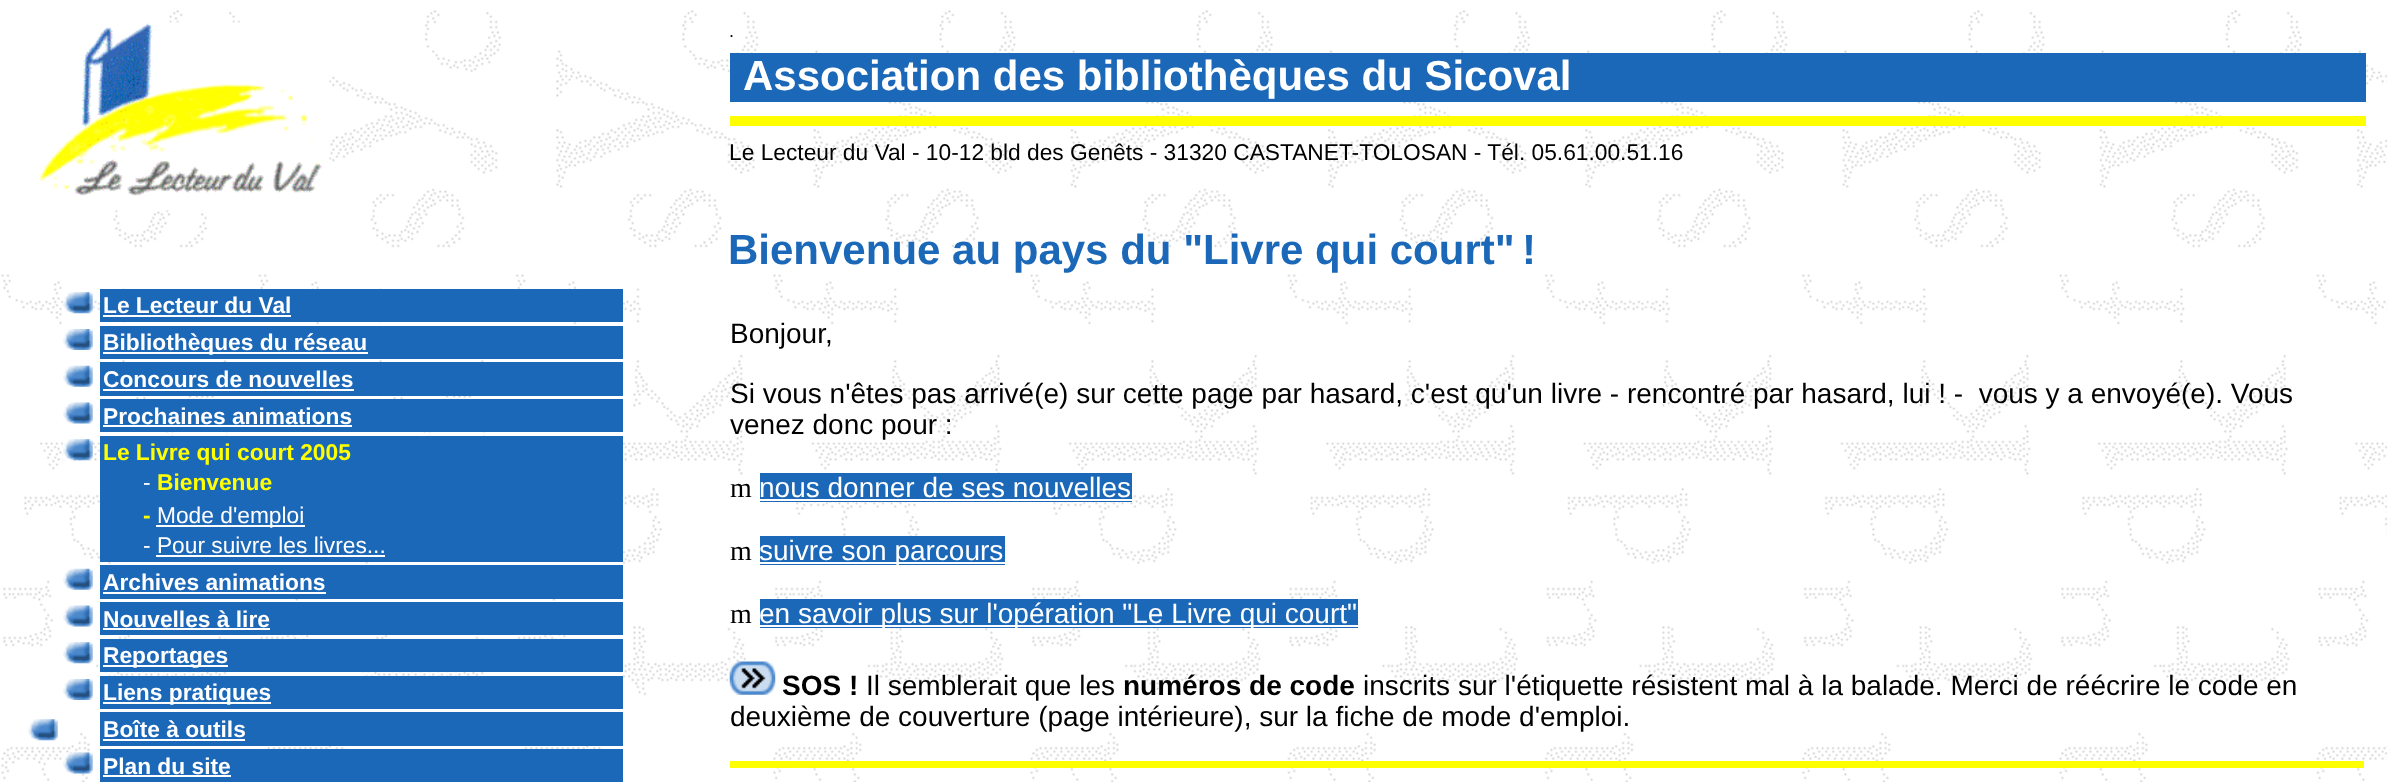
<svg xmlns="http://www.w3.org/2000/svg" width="2387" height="782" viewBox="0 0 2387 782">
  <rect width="100%" height="100%" fill="#ffffff"/>
  <image x="1" y="10" width="2386" height="772" href="img1.png"/>
  <image x="40" y="22" width="290" height="189" href="img2.png"/>
  <text x="729" y="37" font-family="Liberation Sans" font-size="18" fill="#000000">.</text>
  <rect x="730" y="53" width="1636" height="49" fill="#1c68b8"/>
  <text x="743" y="90" font-family="Liberation Sans" font-size="42" font-weight="bold" fill="#ffffff">Association des bibliothèques du Sicoval</text>
  <rect x="730" y="116" width="1636" height="10" fill="#ffff00"/>
  <text x="729" y="160" font-family="Liberation Sans" font-size="22.75" fill="#000000">Le Lecteur du Val - 10-12 bld des Genêts - 31320 CASTANET-TOLOSAN - Tél. 05.61.00.51.16</text>
  <text x="728" y="264" font-family="Liberation Sans" font-size="42" font-weight="bold" fill="#1c68b8">Bienvenue au pays du "Livre qui court"</text>
  <text x="1522" y="264" font-family="Liberation Sans" font-size="42" font-weight="bold" fill="#1c68b8">!</text>
  <image x="63" y="292" width="30" height="22" href="img3.png"/>
  <rect x="100" y="289" width="523" height="33" fill="#1c68b8"/>
  <text x="103" y="313" font-family="Liberation Sans" font-size="22.75" font-weight="bold" fill="#ffffff">Le Lecteur du Val</text>
  <rect x="103" y="315" width="188" height="2" fill="#ffffff"/>
  <image x="63" y="329" width="30" height="21" href="img4.png"/>
  <rect x="100" y="326" width="523" height="33" fill="#1c68b8"/>
  <rect x="103" y="352" width="265" height="2" fill="#ffffff"/>
  <text x="103" y="350" font-family="Liberation Sans" font-size="22.75" font-weight="bold" fill="#ffffff">Bibliothèques du réseau</text>
  <image x="63" y="365" width="30" height="22" href="img5.png"/>
  <rect x="100" y="362" width="523" height="34" fill="#1c68b8"/>
  <text x="103" y="387" font-family="Liberation Sans" font-size="22.75" font-weight="bold" fill="#ffffff">Concours de nouvelles</text>
  <rect x="103" y="389" width="251" height="2" fill="#ffffff"/>
  <image x="63" y="402" width="30" height="22" href="img6.png"/>
  <rect x="100" y="399" width="523" height="33" fill="#1c68b8"/>
  <text x="103" y="424" font-family="Liberation Sans" font-size="22.75" font-weight="bold" fill="#ffffff">Prochaines animations</text>
  <rect x="103" y="425" width="249" height="2" fill="#ffffff"/>
  <image x="63" y="439" width="30" height="22" href="img7.png"/>
  <rect x="100" y="436" width="523" height="126" fill="#1c68b8"/>
  <text x="103" y="460" font-family="Liberation Sans" font-size="22.75" font-weight="bold" fill="#ffff00">Le Livre qui court 2005</text>
  <text x="143" y="490" font-family="Liberation Sans" font-size="22.75" fill="#ffffff">-</text>
  <text x="157" y="490" font-family="Liberation Sans" font-size="22.75" font-weight="bold" fill="#ffff00">Bienvenue</text>
  <text x="143" y="523" font-family="Liberation Sans" font-size="22.75" font-weight="bold" fill="#ffff00">-</text>
  <rect x="156" y="525" width="149" height="2" fill="#ffffff"/>
  <text x="157" y="523" font-family="Liberation Sans" font-size="22.75" fill="#ffffff">Mode d'emploi</text>
  <text x="143" y="553" font-family="Liberation Sans" font-size="22.75" fill="#ffffff">- Pour suivre les livres...</text>
  <rect x="156" y="555" width="229" height="2" fill="#ffffff"/>
  <image x="63" y="568" width="30" height="22" href="img5.png"/>
  <rect x="100" y="565" width="523" height="34" fill="#1c68b8"/>
  <text x="103" y="590" font-family="Liberation Sans" font-size="22.75" font-weight="bold" fill="#ffffff">Archives animations</text>
  <rect x="103" y="592" width="223" height="2" fill="#ffffff"/>
  <image x="63" y="605" width="30" height="22" href="img6.png"/>
  <rect x="100" y="602" width="523" height="33" fill="#1c68b8"/>
  <text x="103" y="627" font-family="Liberation Sans" font-size="22.75" font-weight="bold" fill="#ffffff">Nouvelles à lire</text>
  <rect x="103" y="628" width="167" height="2" fill="#ffffff"/>
  <image x="63" y="642" width="30" height="22" href="img8.png"/>
  <rect x="100" y="639" width="523" height="33" fill="#1c68b8"/>
  <rect x="103" y="665" width="125" height="2" fill="#ffffff"/>
  <text x="103" y="663" font-family="Liberation Sans" font-size="22.75" font-weight="bold" fill="#ffffff">Reportages</text>
  <image x="63" y="679" width="30" height="21" href="img4.png"/>
  <rect x="100" y="676" width="523" height="33" fill="#1c68b8"/>
  <rect x="103" y="702" width="168" height="2" fill="#ffffff"/>
  <text x="103" y="700" font-family="Liberation Sans" font-size="22.75" font-weight="bold" fill="#ffffff">Liens pratiques</text>
  <image x="28" y="719" width="30" height="22" href="img8.png"/>
  <rect x="100" y="712" width="523" height="34" fill="#1c68b8"/>
  <text x="103" y="737" font-family="Liberation Sans" font-size="22.75" font-weight="bold" fill="#ffffff">Boîte à outils</text>
  <rect x="103" y="739" width="142" height="2" fill="#ffffff"/>
  <image x="63" y="752" width="30" height="22" href="img9.png"/>
  <rect x="100" y="749" width="523" height="33" fill="#1c68b8"/>
  <text x="103" y="774" font-family="Liberation Sans" font-size="22.75" font-weight="bold" fill="#ffffff">Plan du site</text>
  <rect x="103" y="775" width="128" height="2" fill="#ffffff"/>
  <text x="730" y="343" font-family="Liberation Sans" font-size="28" fill="#000000">Bonjour,</text>
  <text x="730" y="403" font-family="Liberation Sans" font-size="28" fill="#000000" xml:space="preserve">Si vous n'êtes pas arrivé(e) sur cette page par hasard, c'est qu'un livre - rencontré par hasard, lui ! -  vous y a envoyé(e). Vous</text>
  <text x="730" y="434" font-family="Liberation Sans" font-size="28" fill="#000000">venez donc pour :</text>
  <text x="730" y="497" font-family="Liberation Serif" font-size="28" fill="#000000">m</text>
  <rect x="760" y="473" width="372" height="29" fill="#1c68b8"/>
  <text x="759" y="497" font-family="Liberation Sans" font-size="28" fill="#ffffff">nous donner de ses nouvelles</text>
  <rect x="760" y="499" width="372" height="2" fill="#ffffff"/>
  <text x="730" y="560" font-family="Liberation Serif" font-size="28" fill="#000000">m</text>
  <rect x="760" y="536" width="245" height="29" fill="#1c68b8"/>
  <rect x="760" y="562" width="245" height="2" fill="#ffffff"/>
  <text x="759" y="560" font-family="Liberation Sans" font-size="28" fill="#ffffff">suivre son parcours</text>
  <text x="730" y="623" font-family="Liberation Serif" font-size="28" fill="#000000">m</text>
  <rect x="760" y="599" width="598" height="29" fill="#1c68b8"/>
  <rect x="760" y="625" width="598" height="2" fill="#ffffff"/>
  <text x="759" y="623" font-family="Liberation Sans" font-size="28" fill="#ffffff">en savoir plus sur l'opération "Le Livre qui court"</text>
  <image x="729" y="661" width="47" height="34" href="img10.png"/>
  <text x="782" y="695" font-family="Liberation Sans" font-size="28" font-weight="bold" fill="#000000">SOS !</text>
  <text x="866" y="695" font-family="Liberation Sans" font-size="28" fill="#000000">Il semblerait que les</text>
  <text x="1123" y="695" font-family="Liberation Sans" font-size="28" font-weight="bold" fill="#000000">numéros de code</text>
  <text x="1363" y="695" font-family="Liberation Sans" font-size="28" fill="#000000">inscrits sur l'étiquette résistent mal à la balade. Merci de réécrire le code en</text>
  <text x="730" y="726" font-family="Liberation Sans" font-size="28" fill="#000000">deuxième de couverture (page intérieure), sur la fiche de mode d'emploi.</text>
  <rect x="730" y="761" width="1634" height="7" fill="#ffff00"/>
</svg>
